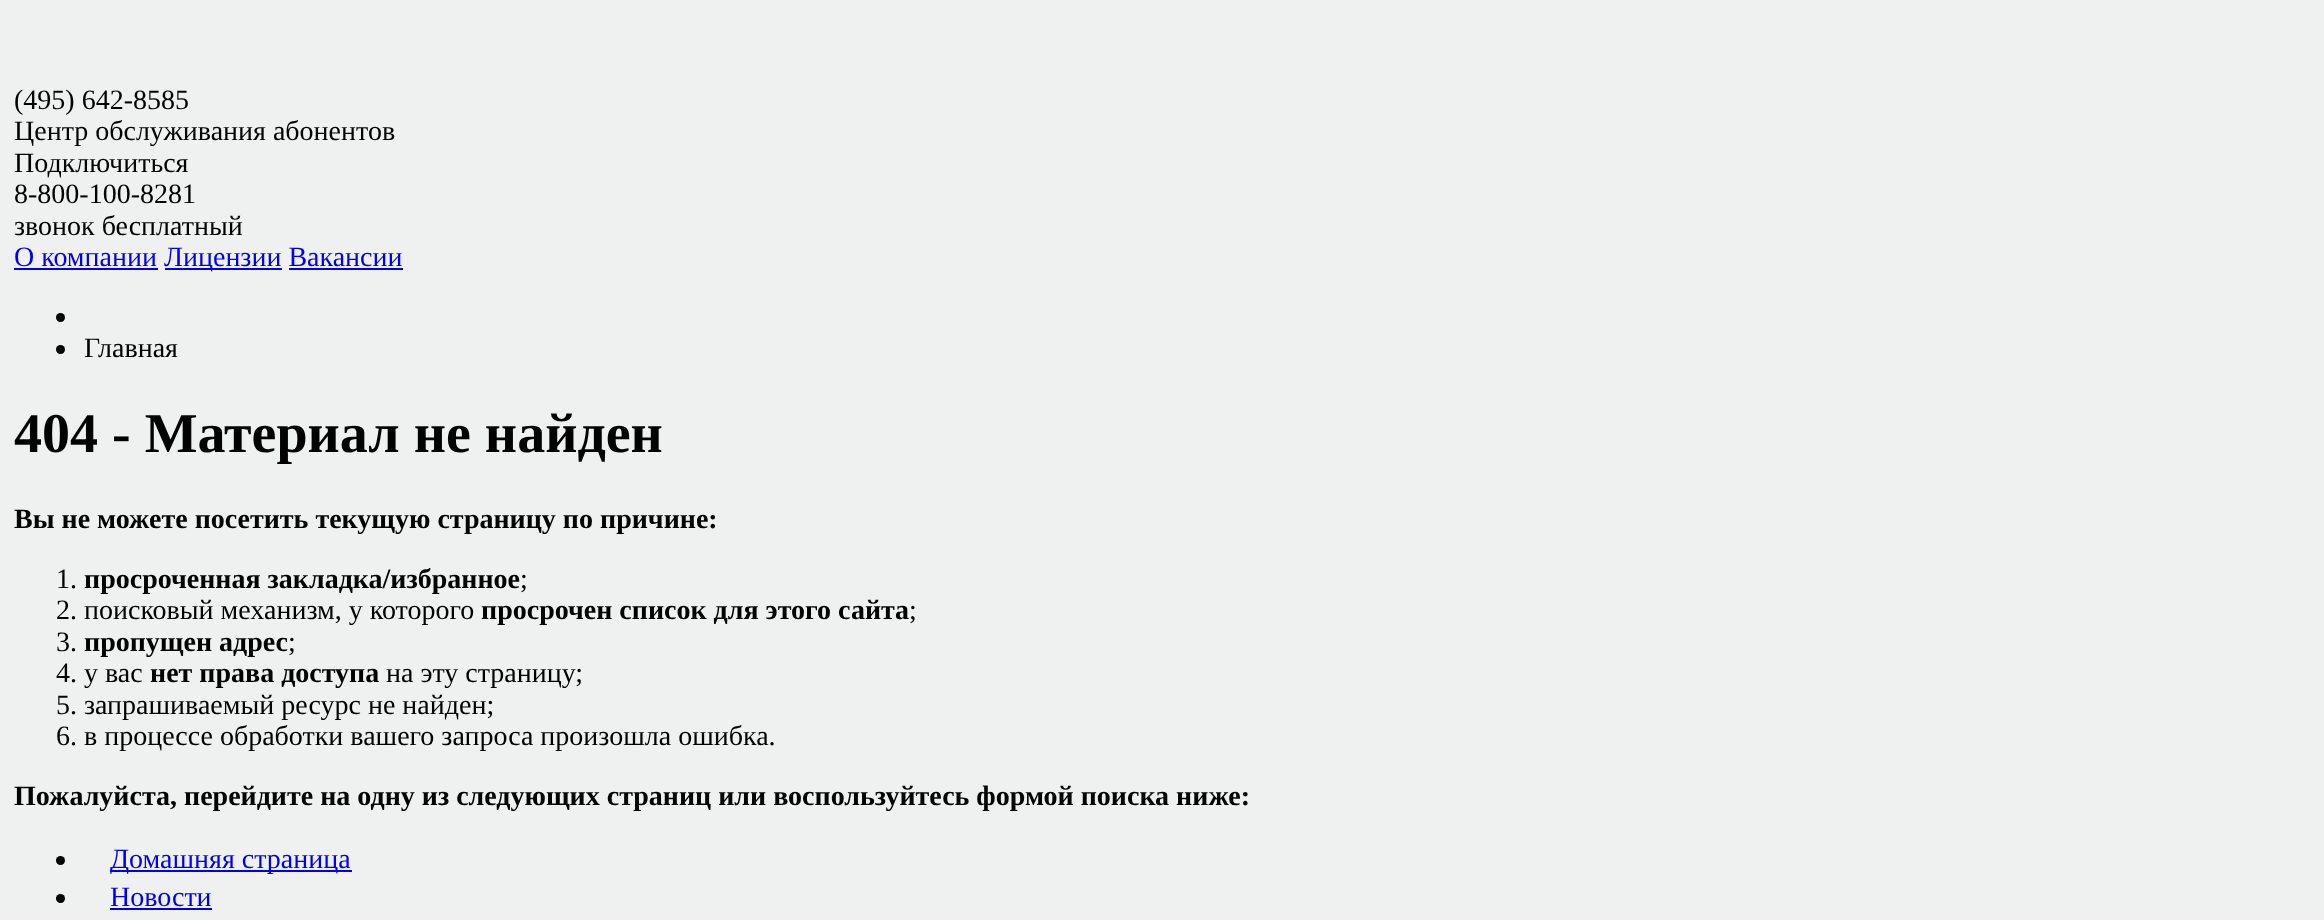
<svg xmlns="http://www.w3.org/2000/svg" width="2324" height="920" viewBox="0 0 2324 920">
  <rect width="100%" height="100%" fill="#eef1ef"/>
  <text x="14" y="109" font-family="Liberation Serif" font-size="28" fill="#000000">(495) 642-8585</text>
  <text x="14" y="140" font-family="Liberation Serif" font-size="28" fill="#000000">Центр обслуживания абонентов</text>
  <text x="14" y="172" font-family="Liberation Serif" font-size="28" fill="#000000">Подключиться</text>
  <text x="14" y="203" font-family="Liberation Serif" font-size="28" fill="#000000">8-800-100-8281</text>
  <text x="14" y="235" font-family="Liberation Serif" font-size="28" fill="#000000">звонок бесплатный</text>
  <text x="14" y="266" font-family="Liberation Serif" font-size="28" fill="#0000ee">О компании</text>
  <rect x="14" y="268" width="144" height="2" fill="#0000ee"/>
  <rect x="165" y="268" width="117" height="2" fill="#0000ee"/>
  <text x="164" y="266" font-family="Liberation Serif" font-size="28" fill="#0000ee">Лицензии Вакансии</text>
  <rect x="289" y="268" width="114" height="2" fill="#0000ee"/>
  <circle cx="60.5" cy="317.5" r="4.5" fill="#000000"/>
  <circle cx="60.5" cy="349.5" r="4.5" fill="#000000"/>
  <text x="84" y="357" font-family="Liberation Serif" font-size="28" fill="#000000">Главная</text>
  <text x="14" y="452" font-family="Liberation Serif" font-size="56" font-weight="bold" fill="#000000">404 - Материал не найден</text>
  <text x="14" y="528" font-family="Liberation Serif" font-size="28" font-weight="bold" fill="#000000">Вы не можете посетить текущую страницу по причине:</text>
  <text x="56" y="588" font-family="Liberation Serif" font-size="28" fill="#000000">1.</text>
  <text x="84" y="588" font-family="Liberation Serif" font-size="28" font-weight="bold" fill="#000000">просроченная закладка/избранное</text>
  <text x="520" y="588" font-family="Liberation Serif" font-size="28" fill="#000000">;</text>
  <text x="56" y="619" font-family="Liberation Serif" font-size="28" fill="#000000">2. поисковый механизм, у которого</text>
  <text x="481" y="619" font-family="Liberation Serif" font-size="28" font-weight="bold" fill="#000000">просрочен список для этого сайта</text>
  <text x="909" y="619" font-family="Liberation Serif" font-size="28" fill="#000000">;</text>
  <text x="56" y="651" font-family="Liberation Serif" font-size="28" fill="#000000">3.</text>
  <text x="84" y="651" font-family="Liberation Serif" font-size="28" font-weight="bold" fill="#000000">пропущен адрес</text>
  <text x="288" y="651" font-family="Liberation Serif" font-size="28" fill="#000000">;</text>
  <text x="56" y="682" font-family="Liberation Serif" font-size="28" fill="#000000">4. у вас</text>
  <text x="150" y="682" font-family="Liberation Serif" font-size="28" font-weight="bold" fill="#000000">нет права доступа</text>
  <text x="386" y="682" font-family="Liberation Serif" font-size="28" fill="#000000">на эту страницу;</text>
  <text x="56" y="714" font-family="Liberation Serif" font-size="28" fill="#000000">5. запрашиваемый ресурс не найден;</text>
  <text x="56" y="745" font-family="Liberation Serif" font-size="28" fill="#000000">6. в процессе обработки вашего запроса произошла ошибка.</text>
  <text x="14" y="805" font-family="Liberation Serif" font-size="28" font-weight="bold" fill="#000000">Пожалуйста, перейдите на одну из следующих страниц или воспользуйтесь формой поиска ниже:</text>
  <circle cx="60.5" cy="860.5" r="4.5" fill="#000000"/>
  <rect x="110" y="870" width="242" height="2" fill="#0000ee"/>
  <text x="110" y="868" font-family="Liberation Serif" font-size="28" fill="#0000ee">Домашняя страница</text>
  <circle cx="60.5" cy="898.5" r="4.5" fill="#000000"/>
  <text x="110" y="906" font-family="Liberation Serif" font-size="28" fill="#0000ee">Новости</text>
  <rect x="110" y="908" width="102" height="2" fill="#0000ee"/>
</svg>
